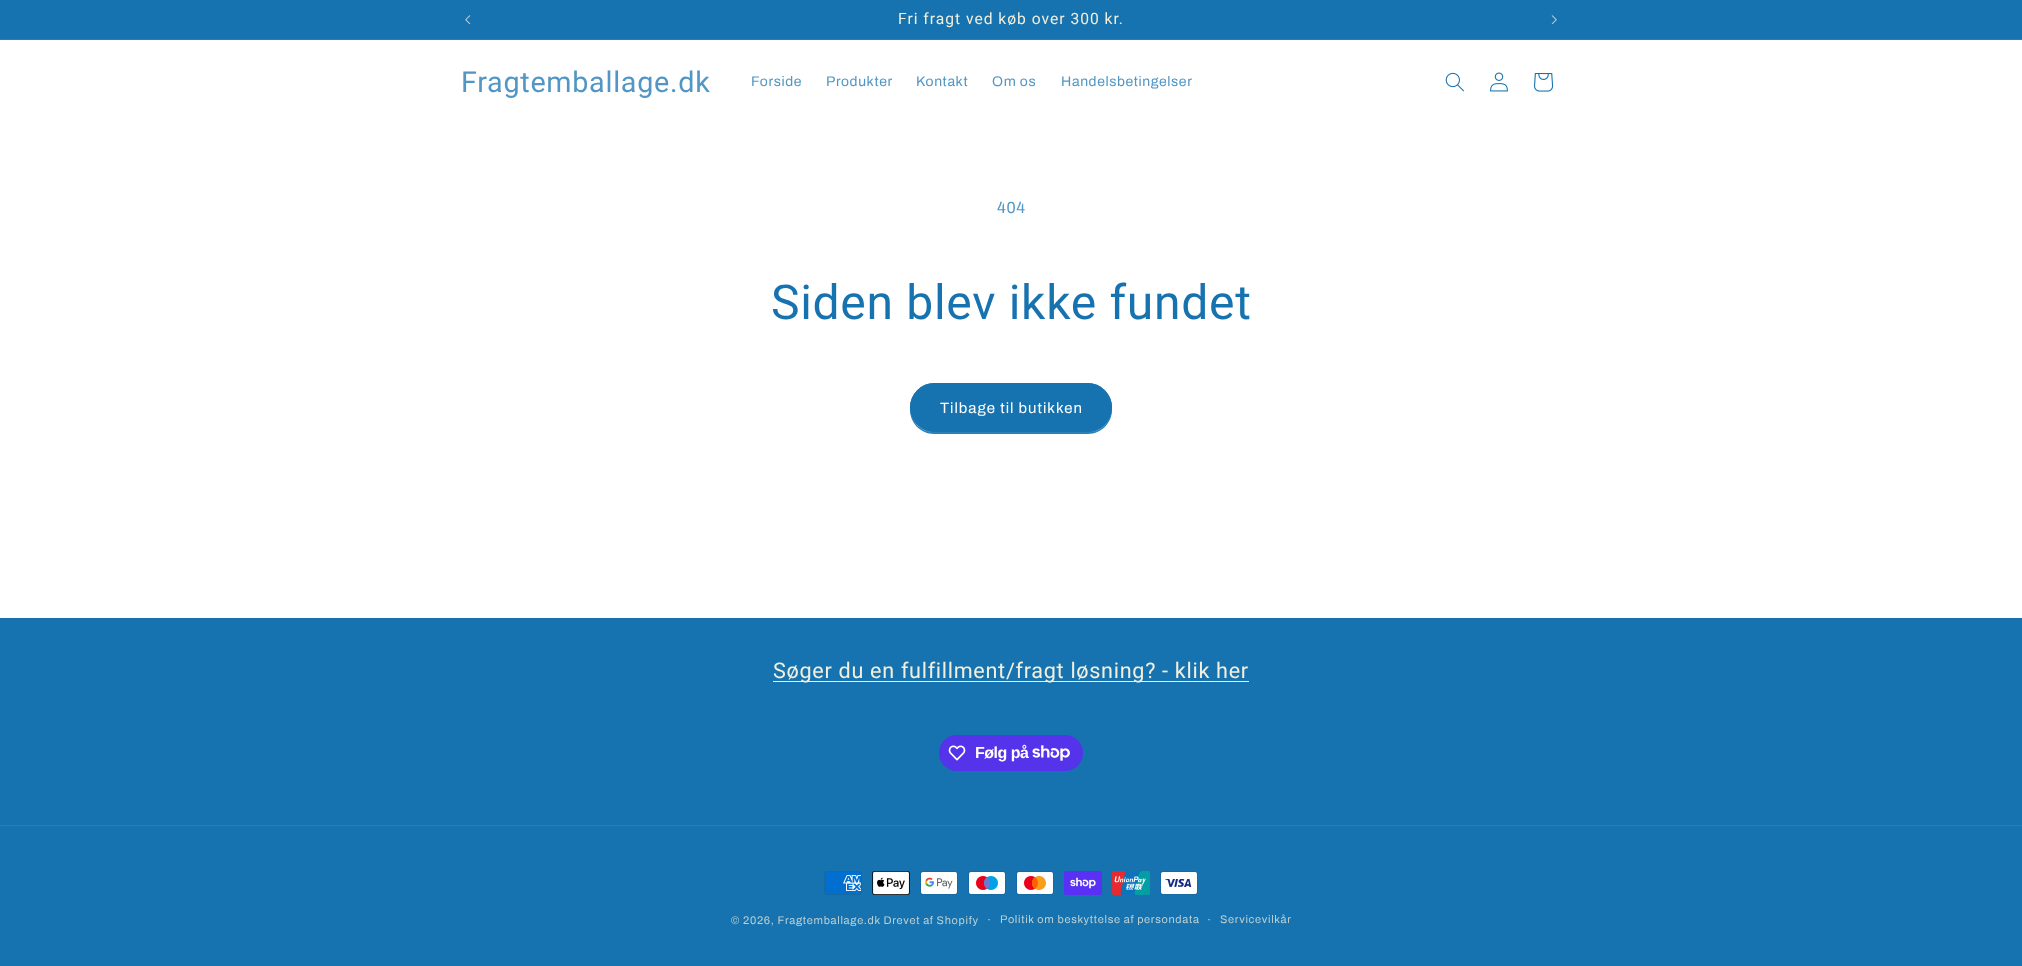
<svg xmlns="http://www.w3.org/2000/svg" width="2022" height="966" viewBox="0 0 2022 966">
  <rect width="100%" height="100%" fill="#ffffff"/>
  <rect x="0" y="0" width="2022" height="39" fill="#1773b0"/>
  <rect x="0" y="39" width="2022" height="1" fill="#297db4"/>
  <image x="465" y="15" width="6" height="10" href="img1.png"/>
  <text x="898" y="24" font-family="Roboto" font-size="15.6" letter-spacing="1" fill="#f2efdd">Fri fragt ved køb over 300 kr.</text>
  <image x="1551" y="15" width="6" height="10" href="img2.png"/>
  <text x="461" y="92" font-family="Roboto" font-size="28.75" letter-spacing="0.7" fill="#5196c4">Fragtemballage.dk</text>
  <text x="751" y="86" font-family="Archivo" font-size="14" letter-spacing="0.6" fill="#5196c4">Forside</text>
  <text x="826" y="86" font-family="Archivo" font-size="14" letter-spacing="0.6" fill="#5196c4">Produkter</text>
  <text x="916" y="86" font-family="Archivo" font-size="14" letter-spacing="0.6" fill="#5196c4">Kontakt</text>
  <text x="992" y="86" font-family="Archivo" font-size="14" letter-spacing="0.6" fill="#5196c4">Om os</text>
  <text x="1061" y="86" font-family="Archivo" font-size="14" letter-spacing="0.6" fill="#5196c4">Handelsbetingelser</text>
  <image x="1445" y="72" width="19" height="20" href="img3.png"/>
  <image x="1490" y="72" width="18" height="20" href="img4.png"/>
  <image x="1534" y="73" width="20" height="19" href="img5.png"/>
  <text x="997" y="213" font-family="Archivo" font-size="16" letter-spacing="0.6" fill="#5196c4">404</text>
  <text x="771" y="319" font-family="Roboto" font-size="48" letter-spacing="0.7" fill="#1773b0">Siden blev ikke fundet</text>
  <path d="M910 408V410C910 423 921 434 934 434H1088C1101 434 1112 423 1112 410V408C1111 422 1101 432 1088 432H934C921 432 911 422 910 408Z" fill="#2e81b8"/>
  <rect x="910" y="383" width="202" height="49" rx="24.5" fill="#1773b0"/>
  <rect x="911" y="384" width="200" height="47" rx="23.5" fill="none" stroke="#1773b0" stroke-width="2"/>
  <text x="940" y="413" font-family="Archivo" font-size="15" letter-spacing="1" fill="#ffffff">Tilbage til butikken</text>
  <rect x="0" y="618" width="2022" height="348" fill="#1773b0"/>
  <rect x="773" y="681" width="476" height="1" fill="#f2efdd"/>
  <text x="773" y="678" font-family="Roboto" font-size="21.6" letter-spacing="0.7" fill="#f2efdd">Søger du en fulfillment/fragt løsning? - klik her</text>
  <rect x="939" y="735" width="144" height="36" rx="18" fill="#5433eb"/>
  <image x="948" y="745" width="18" height="16" href="img6.png"/>
  <text x="975" y="758" font-family="Liberation Sans" font-size="16" font-weight="bold" letter-spacing="-0.5" fill="#ffffff">Følg på</text>
  <image x="1032" y="745" width="38" height="16" href="img7.png"/>
  <rect x="0" y="825" width="2022" height="1" fill="#297db4"/>
  <image x="824" y="871" width="38" height="24" href="img8.png"/>
  <image x="872" y="871" width="38" height="24" href="img9.png"/>
  <image x="920" y="871" width="38" height="24" href="img10.png"/>
  <image x="968" y="871" width="38" height="24" href="img11.png"/>
  <image x="1016" y="871" width="38" height="24" href="img12.png"/>
  <image x="1064" y="871" width="38" height="24" href="img13.png"/>
  <image x="1112" y="871" width="38" height="24" href="img14.png"/>
  <image x="1160" y="871" width="38" height="24" href="img15.png"/>
  <text x="731" y="924" font-family="Archivo" font-size="11" letter-spacing="0.7" fill="#bbd0d2">© 2026, Fragtemballage.dk Drevet af Shopify</text>
  <text x="987" y="924" font-family="Archivo" font-size="12" letter-spacing="0.7" fill="#bbd0d2">·</text>
  <text x="1000" y="923" font-family="Archivo" font-size="11" letter-spacing="0.7" fill="#bbd0d2">Politik om beskyttelse af persondata</text>
  <text x="1207" y="924" font-family="Archivo" font-size="12" letter-spacing="0.7" fill="#bbd0d2">·</text>
  <text x="1220" y="923" font-family="Archivo" font-size="11" letter-spacing="0.7" fill="#bbd0d2">Servicevilkår</text>
</svg>
